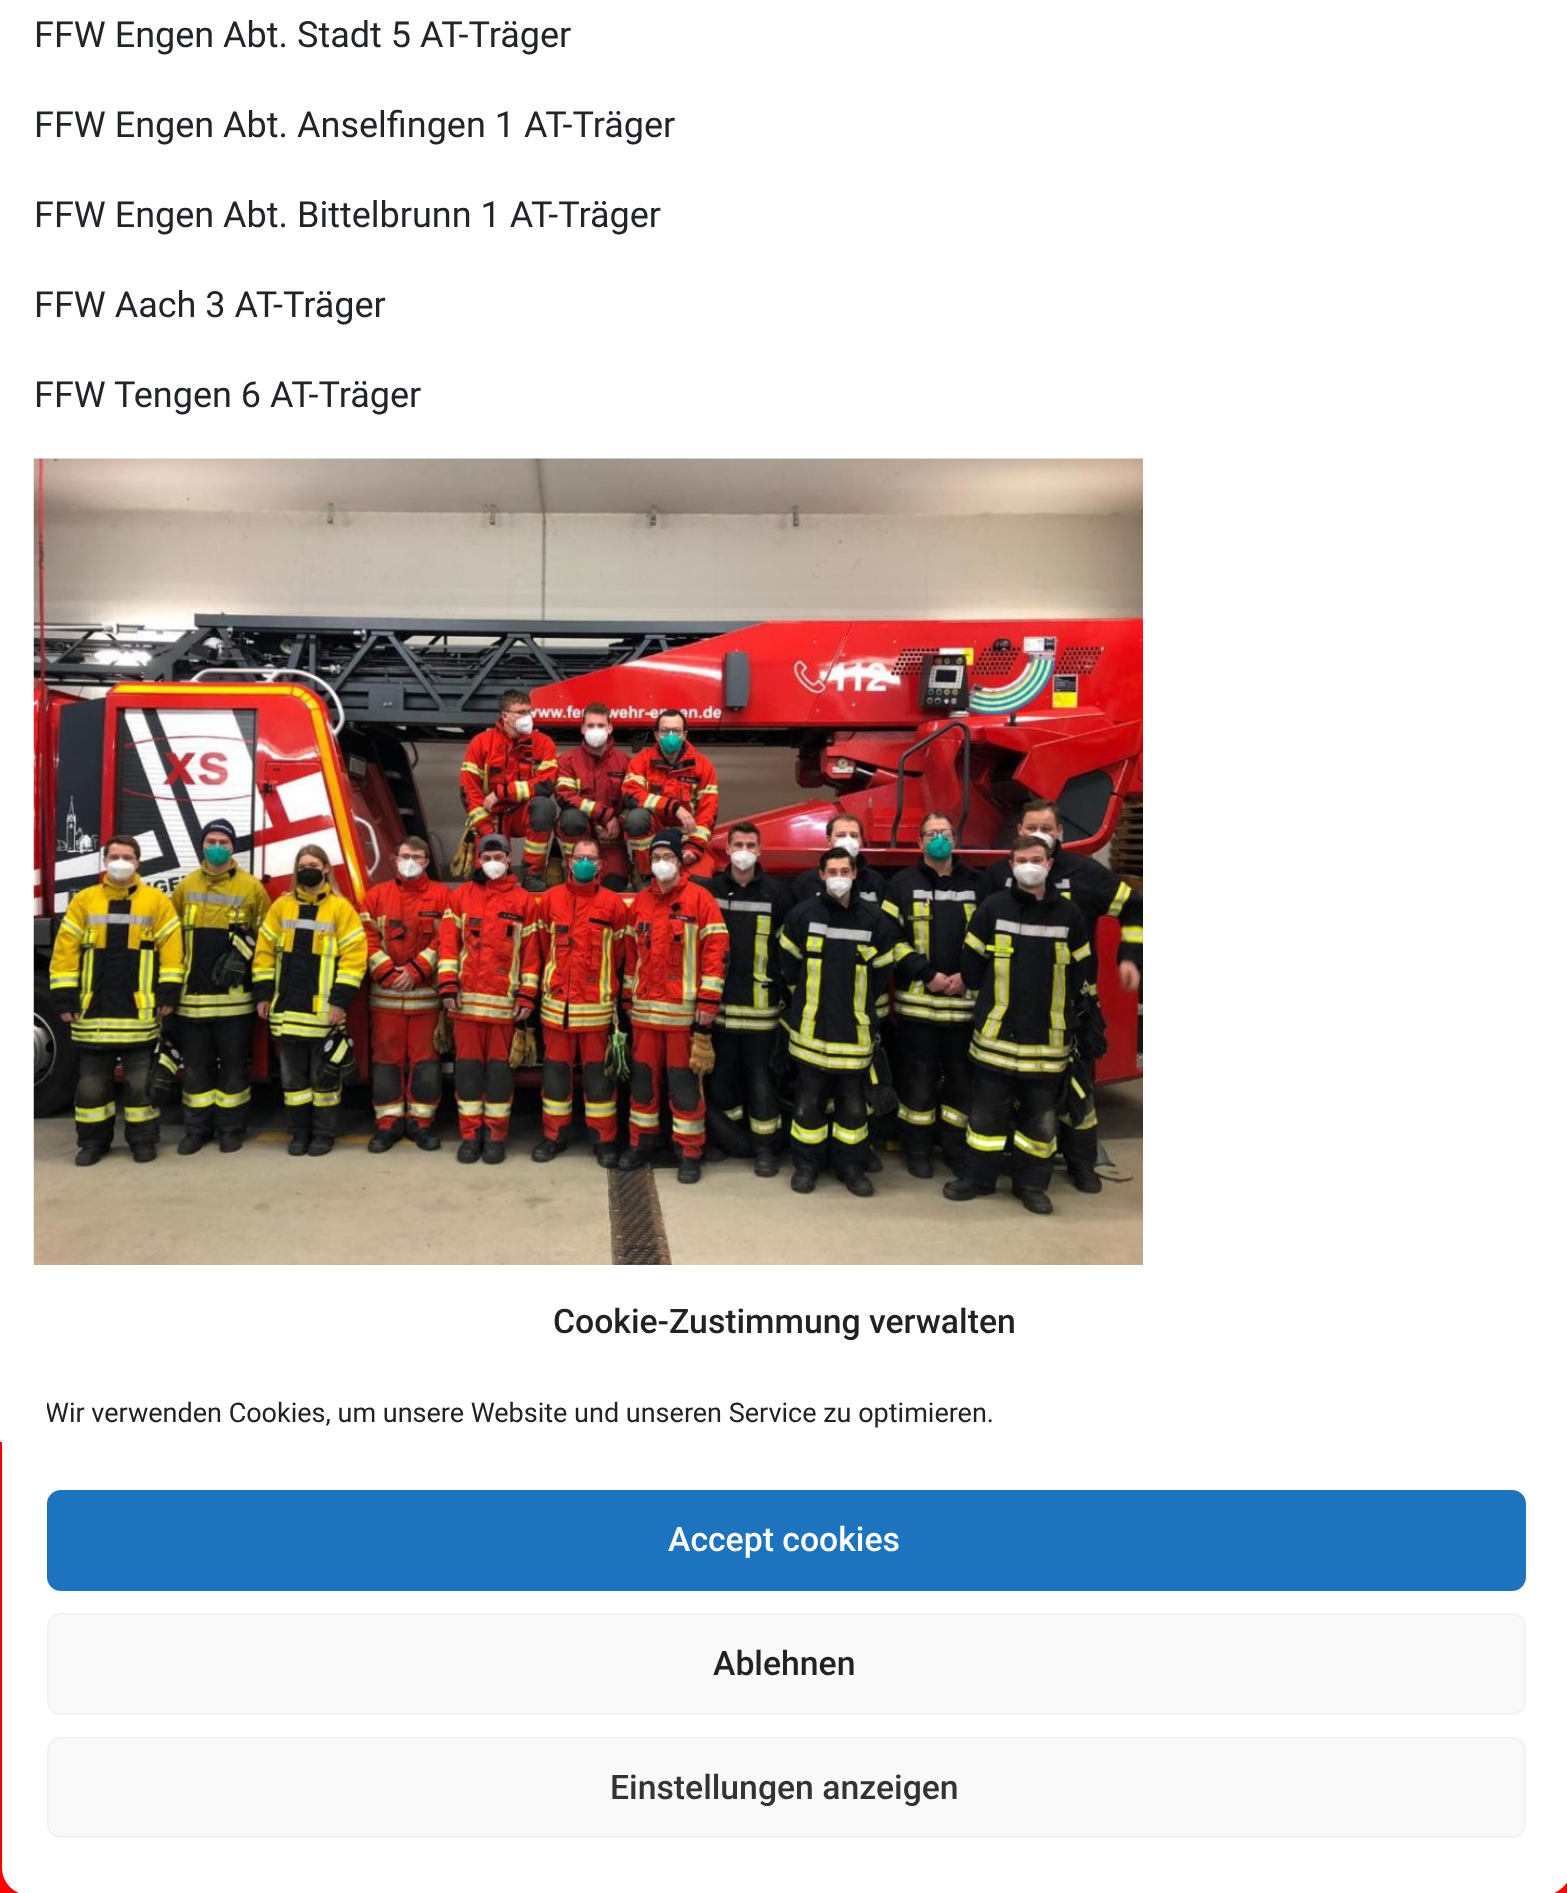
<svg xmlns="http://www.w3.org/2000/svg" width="1567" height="1893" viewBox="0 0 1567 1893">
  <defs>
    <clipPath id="clip1"><rect x="47" y="1393" width="1479" height="52"/></clipPath>
  </defs>
  <rect width="100%" height="100%" fill="#ffffff"/>
  <text x="34" y="47" font-family="Roboto" font-size="36" fill="#212529">FFW Engen Abt. Stadt 5 AT-Träger</text>
  <text x="34" y="137" font-family="Roboto" font-size="36" fill="#212529">FFW Engen Abt. Anselfingen 1 AT-Träger</text>
  <text x="34" y="227" font-family="Roboto" font-size="36" fill="#212529">FFW Engen Abt. Bittelbrunn 1 AT-Träger</text>
  <text x="34" y="317" font-family="Roboto" font-size="36" fill="#212529">FFW Aach 3 AT-Träger</text>
  <text x="34" y="407" font-family="Roboto" font-size="36" fill="#212529">FFW Tengen 6 AT-Träger</text>
  <image x="33" y="458" width="1110" height="807" href="img1.png"/>
  <rect x="0" y="1442" width="1567" height="451" fill="#ff0000"/>
  <rect x="2" y="1265" width="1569" height="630" rx="27" fill="#ffffff"/>
  <text x="553" y="1333" font-family="Roboto" font-size="33.75" font-weight="500" fill="#222222">Cookie-Zustimmung verwalten</text>
  <g clip-path="url(#clip1)">
    <text x="45" y="1422" font-family="Roboto" font-size="27" fill="#222222">Wir verwenden Cookies, um unsere Website und unseren Service zu optimieren.</text>
  </g>
  <rect x="48" y="1491" width="1477" height="99" rx="13" fill="#1e73be" stroke="#1e73be" stroke-width="2"/>
  <text x="668" y="1551" font-family="Roboto" font-size="33.75" font-weight="500" fill="#ffffff">Accept cookies</text>
  <rect x="48" y="1614" width="1477" height="100" rx="13" fill="#f9f9f9" stroke="#f2f2f2" stroke-width="2"/>
  <text x="713" y="1675" font-family="Roboto" font-size="33.75" font-weight="500" fill="#222222">Ablehnen</text>
  <rect x="48" y="1738" width="1477" height="99" rx="13" fill="#f9f9f9" stroke="#f2f2f2" stroke-width="2"/>
  <text x="610" y="1799" font-family="Roboto" font-size="33.75" font-weight="500" fill="#333333">Einstellungen anzeigen</text>
</svg>
